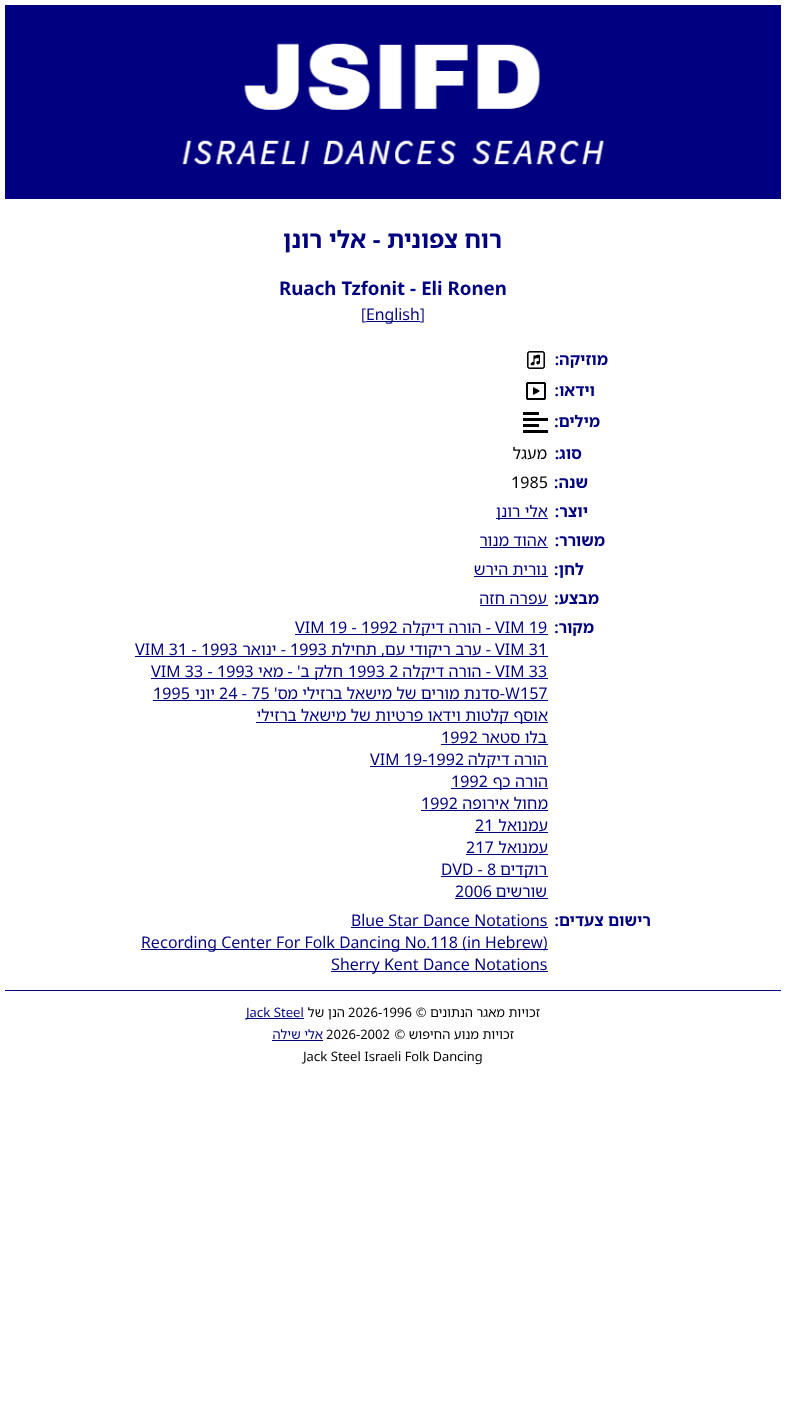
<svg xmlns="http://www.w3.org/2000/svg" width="786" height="1414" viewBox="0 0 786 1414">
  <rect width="100%" height="100%" fill="#ffffff"/>
  <image x="5" y="5" width="776" height="194" href="img1.png"/>
  <text x="502" y="248" font-family="Noto Sans Hebrew" font-size="24" font-weight="bold" direction="rtl" fill="#000080">רוח צפונית - אלי רונן</text>
  <text x="279" y="295" font-family="Noto Sans Hebrew" font-size="18.75" font-weight="bold" fill="#000080">Ruach Tzfonit - Eli Ronen</text>
  <rect x="366" y="321" width="54" height="1" fill="#000080"/>
  <text x="366" y="320" font-family="Noto Sans Hebrew" font-size="16" fill="#000080">English]</text>
  <text x="361" y="320" font-family="Noto Sans Hebrew" font-size="16" fill="#000080">[</text>
  <text x="608" y="365" font-family="Noto Sans Hebrew" font-size="16" font-weight="bold" direction="rtl" fill="#000080">מוזיקה:</text>
  <image x="527" y="351" width="18" height="18" href="img2.png"/>
  <text x="595" y="396" font-family="Noto Sans Hebrew" font-size="16" font-weight="bold" direction="rtl" fill="#000080">וידאו:</text>
  <image x="526" y="382" width="20" height="18" href="img3.png"/>
  <text x="600" y="427" font-family="Noto Sans Hebrew" font-size="16" font-weight="bold" direction="rtl" fill="#000080">מילים:</text>
  <image x="523" y="412" width="25" height="21" href="img4.png"/>
  <text x="582" y="459" font-family="Noto Sans Hebrew" font-size="16" font-weight="bold" direction="rtl" fill="#000080">סוג:</text>
  <text x="547" y="459" font-family="Noto Sans Hebrew" font-size="16" direction="rtl" fill="#000000">מעגל</text>
  <text x="588" y="488" font-family="Noto Sans Hebrew" font-size="16" font-weight="bold" direction="rtl" fill="#000080">שנה:</text>
  <text x="511" y="488" font-family="Noto Sans Hebrew" font-size="16" fill="#000000">1985</text>
  <text x="588" y="517" font-family="Noto Sans Hebrew" font-size="16" font-weight="bold" direction="rtl" fill="#000080">יוצר:</text>
  <rect x="496" y="518" width="52" height="1" fill="#000080"/>
  <text x="548" y="517" font-family="Noto Sans Hebrew" font-size="16" direction="rtl" fill="#000080">אלי רונן</text>
  <text x="605" y="546" font-family="Noto Sans Hebrew" font-size="16" font-weight="bold" direction="rtl" fill="#000080">משורר:</text>
  <text x="547" y="546" font-family="Noto Sans Hebrew" font-size="16" direction="rtl" fill="#000080">אהוד מנור</text>
  <rect x="480" y="547" width="68" height="1" fill="#000080"/>
  <text x="584" y="575" font-family="Noto Sans Hebrew" font-size="16" font-weight="bold" direction="rtl" fill="#000080">לחן:</text>
  <text x="547" y="575" font-family="Noto Sans Hebrew" font-size="16" direction="rtl" fill="#000080">נורית הירש</text>
  <rect x="474" y="576" width="74" height="1" fill="#000080"/>
  <text x="599" y="604" font-family="Noto Sans Hebrew" font-size="16" font-weight="bold" direction="rtl" fill="#000080">מבצע:</text>
  <text x="547" y="604" font-family="Noto Sans Hebrew" font-size="16" direction="rtl" fill="#000080">עפרה חזה</text>
  <rect x="480" y="605" width="68" height="1" fill="#000080"/>
  <text x="594" y="633" font-family="Noto Sans Hebrew" font-size="16" font-weight="bold" direction="rtl" fill="#000080">מקור:</text>
  <text x="495" y="633" font-family="Noto Sans Hebrew" font-size="16" fill="#000080">VIM 19</text>
  <rect x="295" y="634" width="253" height="1" fill="#000080"/>
  <text x="491" y="633" font-family="Noto Sans Hebrew" font-size="16" direction="rtl" fill="#000080">- הורה דיקלה</text>
  <text x="295" y="633" font-family="Noto Sans Hebrew" font-size="16" fill="#000080">VIM 19 - 1992</text>
  <text x="495" y="655" font-family="Noto Sans Hebrew" font-size="16" fill="#000080">VIM 31</text>
  <rect x="135" y="656" width="413" height="1" fill="#000080"/>
  <text x="491" y="655" font-family="Noto Sans Hebrew" font-size="16" direction="rtl" fill="#000080">- ערב ריקודי עם, תחילת</text>
  <text x="290" y="655" font-family="Noto Sans Hebrew" font-size="16" fill="#000080">1993</text>
  <text x="286" y="655" font-family="Noto Sans Hebrew" font-size="16" direction="rtl" fill="#000080">- ינואר</text>
  <text x="135" y="655" font-family="Noto Sans Hebrew" font-size="16" fill="#000080">VIM 31 - 1993</text>
  <text x="495" y="677" font-family="Noto Sans Hebrew" font-size="16" fill="#000080">VIM 33</text>
  <rect x="151" y="678" width="397" height="1" fill="#000080"/>
  <text x="491" y="677" font-family="Noto Sans Hebrew" font-size="16" direction="rtl" fill="#000080">- הורה דיקלה</text>
  <text x="348" y="677" font-family="Noto Sans Hebrew" font-size="16" fill="#000080">1993 2</text>
  <text x="343" y="677" font-family="Noto Sans Hebrew" font-size="16" direction="rtl" fill="#000080">חלק ב' - מאי</text>
  <text x="151" y="677" font-family="Noto Sans Hebrew" font-size="16" fill="#000080">VIM 33 - 1993</text>
  <text x="505" y="699" font-family="Noto Sans Hebrew" font-size="16" fill="#000080">W157</text>
  <text x="505" y="699" font-family="Noto Sans Hebrew" font-size="16" direction="rtl" fill="#000080">-סדנת מורים של מישאל ברזילי מס'</text>
  <text x="219" y="699" font-family="Noto Sans Hebrew" font-size="16" fill="#000080">24 - 75</text>
  <text x="215" y="699" font-family="Noto Sans Hebrew" font-size="16" direction="rtl" fill="#000080">יוני</text>
  <rect x="153" y="700" width="395" height="1" fill="#000080"/>
  <text x="153" y="699" font-family="Noto Sans Hebrew" font-size="16" fill="#000080">1995</text>
  <rect x="256" y="722" width="292" height="1" fill="#000080"/>
  <text x="548" y="721" font-family="Noto Sans Hebrew" font-size="16" direction="rtl" fill="#000080">אוסף קלטות וידאו פרטיות של מישאל ברזילי</text>
  <text x="547" y="743" font-family="Noto Sans Hebrew" font-size="16" direction="rtl" fill="#000080">בלו סטאר</text>
  <text x="441" y="743" font-family="Noto Sans Hebrew" font-size="16" fill="#000080">1992</text>
  <rect x="441" y="744" width="107" height="1" fill="#000080"/>
  <rect x="370" y="766" width="178" height="1" fill="#000080"/>
  <text x="547" y="765" font-family="Noto Sans Hebrew" font-size="16" direction="rtl" fill="#000080">הורה דיקלה</text>
  <text x="370" y="765" font-family="Noto Sans Hebrew" font-size="16" fill="#000080">VIM 19-1992</text>
  <rect x="451" y="788" width="97" height="1" fill="#000080"/>
  <text x="548" y="787" font-family="Noto Sans Hebrew" font-size="16" direction="rtl" fill="#000080">הורה כף</text>
  <text x="451" y="787" font-family="Noto Sans Hebrew" font-size="16" fill="#000080">1992</text>
  <text x="548" y="809" font-family="Noto Sans Hebrew" font-size="16" direction="rtl" fill="#000080">מחול אירופה</text>
  <text x="421" y="809" font-family="Noto Sans Hebrew" font-size="16" fill="#000080">1992</text>
  <rect x="421" y="810" width="127" height="1" fill="#000080"/>
  <text x="548" y="831" font-family="Noto Sans Hebrew" font-size="16" direction="rtl" fill="#000080">עמנואל</text>
  <text x="475" y="831" font-family="Noto Sans Hebrew" font-size="16" fill="#000080">21</text>
  <rect x="475" y="832" width="73" height="1" fill="#000080"/>
  <text x="548" y="853" font-family="Noto Sans Hebrew" font-size="16" direction="rtl" fill="#000080">עמנואל</text>
  <text x="466" y="853" font-family="Noto Sans Hebrew" font-size="16" fill="#000080">217</text>
  <rect x="466" y="854" width="82" height="1" fill="#000080"/>
  <rect x="441" y="876" width="107" height="1" fill="#000080"/>
  <text x="547" y="875" font-family="Noto Sans Hebrew" font-size="16" direction="rtl" fill="#000080">רוקדים</text>
  <text x="441" y="875" font-family="Noto Sans Hebrew" font-size="16" fill="#000080">DVD - 8</text>
  <text x="547" y="897" font-family="Noto Sans Hebrew" font-size="16" direction="rtl" fill="#000080">שורשים</text>
  <rect x="455" y="898" width="93" height="1" fill="#000080"/>
  <text x="455" y="897" font-family="Noto Sans Hebrew" font-size="16" fill="#000080">2006</text>
  <text x="651" y="926" font-family="Noto Sans Hebrew" font-size="16" font-weight="bold" direction="rtl" fill="#000080">רישום צעדים:</text>
  <text x="351" y="926" font-family="Noto Sans Hebrew" font-size="16" fill="#000080">Blue Star Dance Notations</text>
  <rect x="351" y="927" width="197" height="1" fill="#000080"/>
  <rect x="141" y="949" width="407" height="1" fill="#000080"/>
  <text x="141" y="948" font-family="Noto Sans Hebrew" font-size="16" fill="#000080">Recording Center For Folk Dancing No.118 (in Hebrew)</text>
  <rect x="331" y="971" width="217" height="1" fill="#000080"/>
  <text x="331" y="970" font-family="Noto Sans Hebrew" font-size="16" fill="#000080">Sherry Kent Dance Notations</text>
  <rect x="5" y="990" width="776" height="1" fill="#000080"/>
  <text x="540" y="1017" font-family="Noto Sans Hebrew" font-size="13" direction="rtl" fill="#000000">זכויות מאגר הנתונים ©</text>
  <text x="348" y="1017" font-family="Noto Sans Hebrew" font-size="13" fill="#000000">2026-1996</text>
  <text x="345" y="1017" font-family="Noto Sans Hebrew" font-size="13" direction="rtl" fill="#000000">הנן של</text>
  <rect x="246" y="1018" width="58" height="1" fill="#000080"/>
  <text x="246" y="1017" font-family="Noto Sans Hebrew" font-size="13" fill="#000080">Jack Steel</text>
  <text x="514" y="1039" font-family="Noto Sans Hebrew" font-size="13" direction="rtl" fill="#000000">זכויות מנוע החיפוש ©</text>
  <text x="326" y="1039" font-family="Noto Sans Hebrew" font-size="13" fill="#000000">2026-2002</text>
  <text x="323" y="1039" font-family="Noto Sans Hebrew" font-size="13" direction="rtl" fill="#000080">אלי שילה</text>
  <rect x="272" y="1040" width="51" height="1" fill="#000080"/>
  <text x="303" y="1061" font-family="Noto Sans Hebrew" font-size="13" fill="#000000">Jack Steel Israeli Folk Dancing</text>
</svg>
